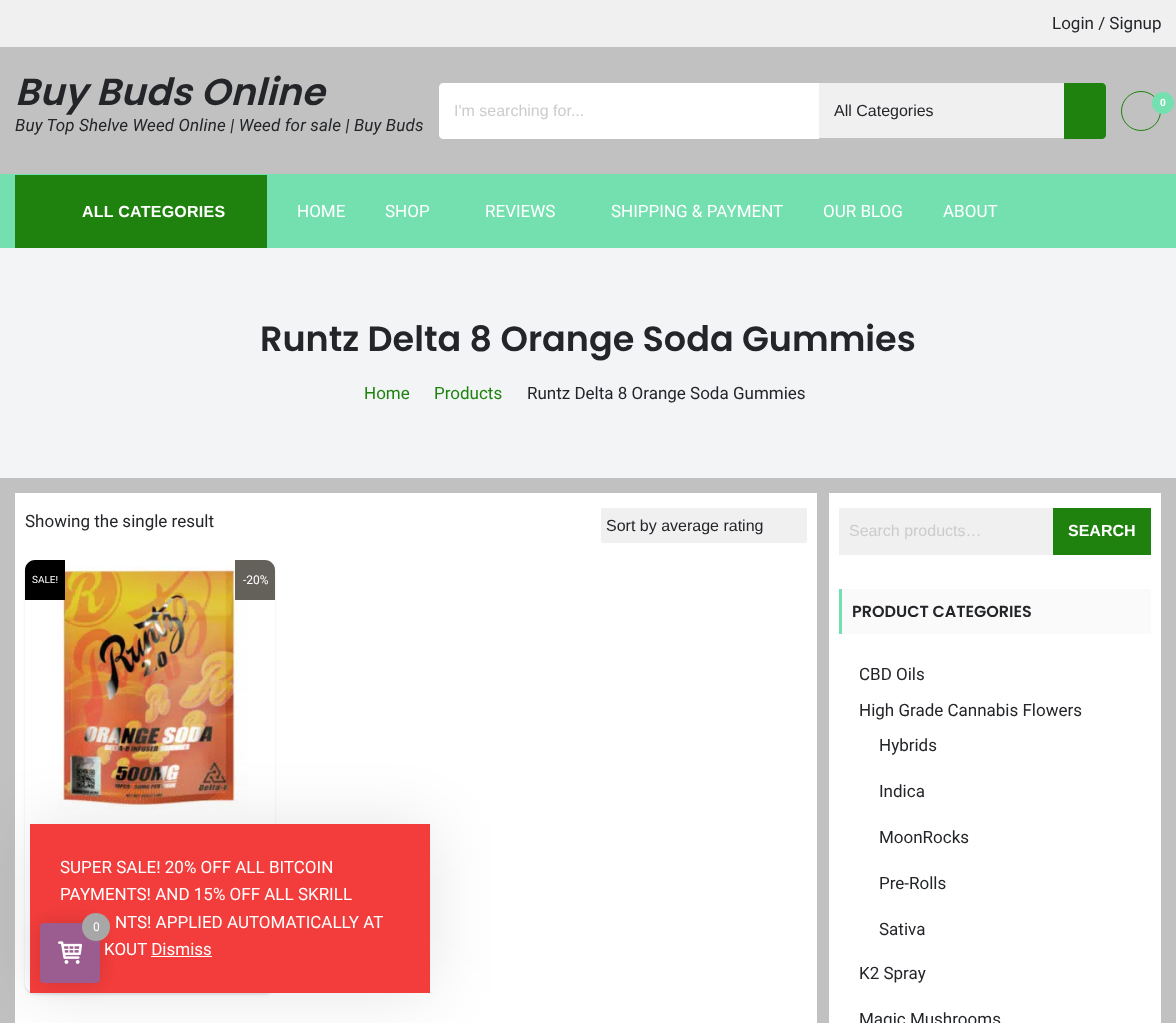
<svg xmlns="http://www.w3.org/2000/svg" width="1176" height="1023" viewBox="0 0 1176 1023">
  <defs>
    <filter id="blur1" x="-50%" y="-200%" width="200%" height="500%"><feGaussianBlur stdDeviation="1"/></filter>
    <filter id="blur2" x="-50%" y="-200%" width="200%" height="500%"><feGaussianBlur stdDeviation="32.5"/></filter>
    <filter id="blur3" x="-50%" y="-200%" width="200%" height="500%"><feGaussianBlur stdDeviation="10"/></filter>
  </defs>
  <rect width="100%" height="100%" fill="#c1c1c1"/>
  <rect x="0" y="0" width="1176" height="47" fill="#f0f0f0"/>
  <text x="1052" y="29" font-family="Roboto" font-size="17" fill="#232529">Login / Signup</text>
  <text x="15" y="105" font-family="Poppins" font-size="37.5" font-weight="600" font-style="italic" letter-spacing="0.15" fill="#232529">Buy Buds Online</text>
  <text x="15" y="131" font-family="Roboto" font-size="17" font-style="italic" letter-spacing="0.15" fill="#232529">Buy Top Shelve Weed Online | Weed for sale | Buy Buds</text>
  <circle cx="1141" cy="111" r="19.5" fill="none" stroke="#1f820e"/>
  <circle cx="1163" cy="103" r="11" fill="#74e0af"/>
  <text x="1160" y="106" font-family="Roboto" font-size="10" font-weight="bold" fill="#ffffff">0</text>
  <path d="M443 83H819V139H443C441 139 439 137 439 135V87C439 85 441 83 443 83Z" fill="#ffffff"/>
  <text x="454" y="116" font-family="Liberation Sans" font-size="16" fill="#cccccc">I'm searching for...</text>
  <rect x="819" y="83" width="245" height="55" fill="#f0f0f0"/>
  <text x="834" y="116" font-family="Liberation Sans" font-size="16" fill="#232529">All Categories</text>
  <path d="M1064 83H1102C1104 83 1106 85 1106 87V135C1106 137 1104 139 1102 139H1064Z" fill="#1f820e"/>
  <rect x="0" y="174" width="1176" height="74" fill="#74e0af"/>
  <rect x="15" y="175" width="252" height="73" fill="#1f820e"/>
  <text x="82" y="217" font-family="Liberation Sans" font-size="16" font-weight="bold" letter-spacing="0.25" fill="#ffffff">ALL CATEGORIES</text>
  <text x="297" y="217" font-family="Roboto" font-size="17" fill="#ffffff">HOME</text>
  <text x="385" y="217" font-family="Roboto" font-size="17" fill="#ffffff">SHOP</text>
  <text x="485" y="217" font-family="Roboto" font-size="17" fill="#ffffff">REVIEWS</text>
  <text x="611" y="217" font-family="Roboto" font-size="17" fill="#ffffff">SHIPPING &amp; PAYMENT</text>
  <text x="823" y="217" font-family="Roboto" font-size="17" fill="#ffffff">OUR BLOG</text>
  <text x="943" y="217" font-family="Roboto" font-size="17" fill="#ffffff">ABOUT</text>
  <rect x="0" y="248" width="1176" height="230" fill="#f2f4f6"/>
  <text x="260" y="351" font-family="Poppins" font-size="35" font-weight="600" fill="#232529">Runtz Delta 8 Orange Soda Gummies</text>
  <text x="364" y="399" font-family="Roboto" font-size="17" fill="#1f820e">Home</text>
  <text x="434" y="399" font-family="Roboto" font-size="17" fill="#1f820e">Products</text>
  <text x="527" y="399" font-family="Roboto" font-size="17" fill="#232529">Runtz Delta 8 Orange Soda Gummies</text>
  <rect x="15" y="493" width="802" height="530" fill="#ffffff"/>
  <text x="25" y="527" font-family="Roboto" font-size="17" fill="#232529">Showing the single result</text>
  <rect x="601" y="508" width="206" height="35" rx="2" fill="#f0f0f0"/>
  <text x="606" y="531" font-family="Liberation Sans" font-size="16" fill="#232529">Sort by average rating</text>
  <rect x="25" y="562" width="250" height="433" rx="10" fill="#9b9b9b" fill-opacity="0.25" filter="url(#blur1)"/>
  <rect x="25" y="560" width="250" height="433" rx="10" fill="#ffffff"/>
  <image x="58" y="566" width="190" height="244" href="img1.png"/>
  <path d="M35 560H65V600H25V570C25 564.5 29.5 560 35 560Z" fill="#000000"/>
  <text x="32" y="583" font-family="Roboto" font-size="10" fill="#ffffff">SALE!</text>
  <path d="M235 560H265C270.5 560 275 564.5 275 570V600H235Z" fill="#63615a"/>
  <text x="243" y="584" font-family="Roboto" font-size="12" fill="#ffffff">-20%</text>
  <rect x="829" y="493" width="332" height="530" fill="#ffffff"/>
  <rect x="839" y="508" width="214" height="47" fill="#f0f0f0"/>
  <text x="849" y="536" font-family="Liberation Sans" font-size="16" fill="#cccccc">Search products…</text>
  <rect x="1053" y="508" width="98" height="47" fill="#1f820e"/>
  <text x="1068" y="536" font-family="Liberation Sans" font-size="16" font-weight="bold" fill="#ffffff">SEARCH</text>
  <rect x="842" y="589" width="309" height="45" fill="#fafafa"/>
  <rect x="839" y="589" width="3" height="45" fill="#74e0af"/>
  <text x="852" y="617" font-family="Poppins" font-size="16" font-weight="600" fill="#232529">PRODUCT CATEGORIES</text>
  <text x="859" y="680" font-family="Roboto" font-size="17" fill="#232529">CBD Oils</text>
  <text x="859" y="716" font-family="Roboto" font-size="17" fill="#232529">High Grade Cannabis Flowers</text>
  <text x="879" y="751" font-family="Roboto" font-size="17" fill="#232529">Hybrids</text>
  <text x="879" y="797" font-family="Roboto" font-size="17" fill="#232529">Indica</text>
  <text x="879" y="843" font-family="Roboto" font-size="17" fill="#232529">MoonRocks</text>
  <text x="879" y="889" font-family="Roboto" font-size="17" fill="#232529">Pre-Rolls</text>
  <text x="879" y="935" font-family="Roboto" font-size="17" fill="#232529">Sativa</text>
  <text x="859" y="979" font-family="Roboto" font-size="17" fill="#232529">K2 Spray</text>
  <text x="859" y="1025" font-family="Roboto" font-size="17" fill="#232529">Magic Mushrooms</text>
  <rect x="30" y="824" width="400" height="169" fill="#000000" fill-opacity="0.1" filter="url(#blur2)"/>
  <rect x="30" y="824" width="400" height="169" fill="#f33d3c"/>
  <rect x="40" y="923" width="60" height="60" rx="4" fill="#000000" fill-opacity="0.15" filter="url(#blur3)"/>
  <rect x="40" y="923" width="60" height="60" rx="4" fill="#9b5c8f"/>
  <circle cx="96" cy="927" r="14" fill="#a7a7a7"/>
  <text x="93" y="931" font-family="Roboto" font-size="12" fill="#ffffff">0</text>
  <image x="58" y="941" width="25" height="23" href="img2.png"/>
  <text x="60" y="873" font-family="Roboto" font-size="17" fill="#ffffff">SUPER SALE! 20% OFF ALL BITCOIN</text>
  <text x="60" y="900" font-family="Roboto" font-size="17" fill="#ffffff">PAYMENTS! AND 15% OFF ALL SKRILL</text>
  <text x="115" y="928" font-family="Roboto" font-size="17" fill="#ffffff">NTS! APPLIED AUTOMATICALLY AT</text>
  <text x="104" y="955" font-family="Roboto" font-size="17" fill="#ffffff">KOUT Dismiss</text>
  <rect x="151" y="956" width="61" height="1" fill="#ffffff"/>
</svg>
